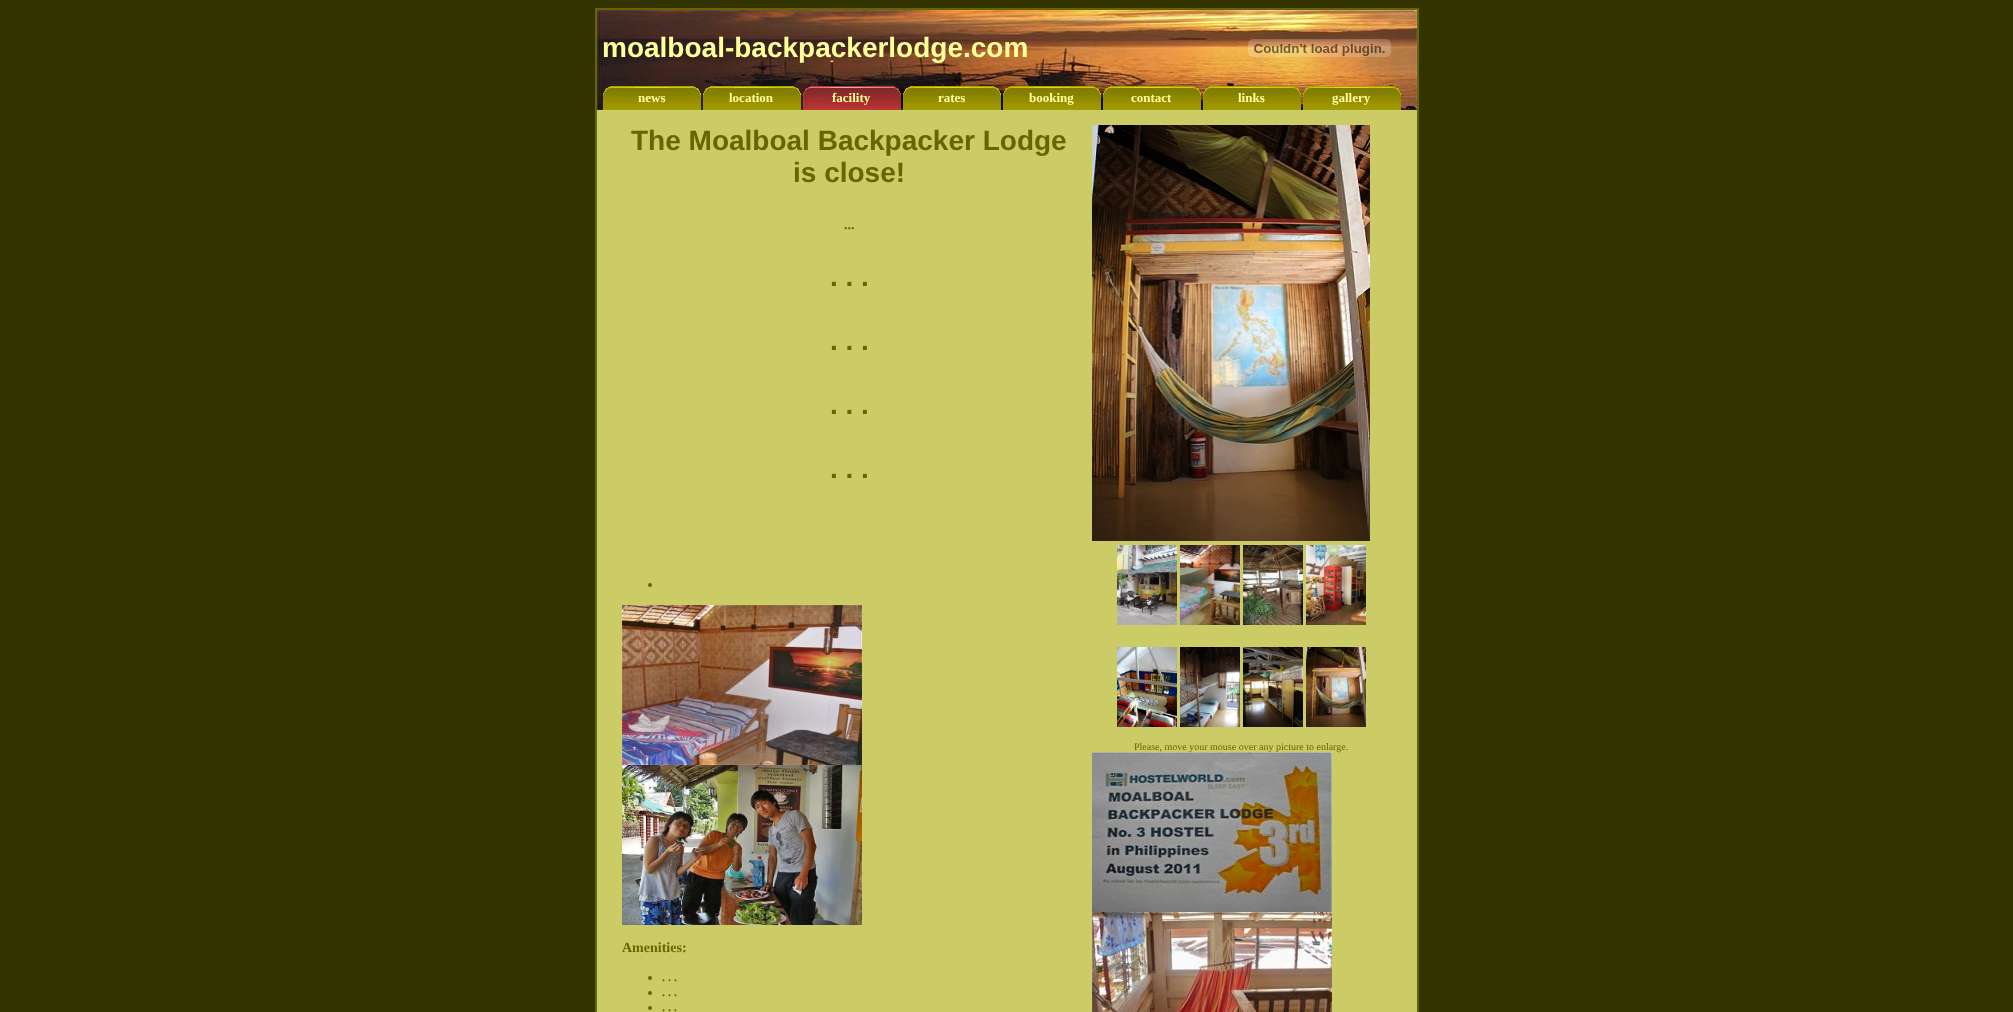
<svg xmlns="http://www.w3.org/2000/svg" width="2013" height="1012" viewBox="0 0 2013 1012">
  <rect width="100%" height="100%" fill="#333300"/>
  <rect x="595.5" y="8.5" width="823" height="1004" fill="none" stroke="#666600"/>
  <rect x="596.5" y="9.5" width="821" height="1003" fill="none" stroke="#666600"/>
  <rect x="597" y="110" width="820" height="902" fill="#cccc66"/>
  <image x="597" y="10" width="820" height="100" href="img1.png"/>
  <text x="602" y="57" font-family="Liberation Sans" font-size="28" font-weight="bold" fill="#ffff99">moalboal-backpackerlodge.com</text>
  <image x="1248" y="39" width="143" height="18" href="img2.png"/>
  <image x="603" y="86" width="98" height="24" href="img3.png"/>
  <text x="638" y="102" font-family="Liberation Serif" font-size="13" font-weight="bold" fill="#ffff99">news</text>
  <image x="703" y="86" width="98" height="24" href="img4.png"/>
  <text x="729" y="102" font-family="Liberation Serif" font-size="13" font-weight="bold" fill="#ffff99">location</text>
  <image x="803" y="86" width="98" height="24" href="img5.png"/>
  <text x="832" y="102" font-family="Liberation Serif" font-size="13" font-weight="bold" fill="#ffff99">facility</text>
  <image x="903" y="86" width="98" height="24" href="img6.png"/>
  <text x="938" y="102" font-family="Liberation Serif" font-size="13" font-weight="bold" fill="#ffff99">rates</text>
  <image x="1003" y="86" width="98" height="24" href="img7.png"/>
  <text x="1029" y="102" font-family="Liberation Serif" font-size="13" font-weight="bold" fill="#ffff99">booking</text>
  <image x="1103" y="86" width="98" height="24" href="img8.png"/>
  <text x="1131" y="102" font-family="Liberation Serif" font-size="13" font-weight="bold" fill="#ffff99">contact</text>
  <image x="1203" y="86" width="98" height="24" href="img9.png"/>
  <text x="1238" y="102" font-family="Liberation Serif" font-size="13" font-weight="bold" fill="#ffff99">links</text>
  <image x="1303" y="86" width="98" height="24" href="img10.png"/>
  <text x="1332" y="102" font-family="Liberation Serif" font-size="13" font-weight="bold" fill="#ffff99">gallery</text>
  <text x="631" y="150" font-family="Liberation Sans" font-size="28" font-weight="bold" fill="#666600">The Moalboal Backpacker Lodge</text>
  <text x="793" y="182" font-family="Liberation Sans" font-size="28" font-weight="bold" fill="#666600">is close!</text>
  <text x="844" y="229" font-family="Liberation Serif" font-size="14" font-weight="bold" fill="#666600">...</text>
  <text x="830" y="286" font-family="Liberation Sans" font-size="28" font-weight="bold" fill="#666600">. . .</text>
  <text x="830" y="350" font-family="Liberation Sans" font-size="28" font-weight="bold" fill="#666600">. . .</text>
  <text x="830" y="414" font-family="Liberation Sans" font-size="28" font-weight="bold" fill="#666600">. . .</text>
  <text x="830" y="478" font-family="Liberation Sans" font-size="28" font-weight="bold" fill="#666600">. . .</text>
  <circle cx="650" cy="585" r="2" fill="#666600"/>
  <image x="622" y="605" width="240" height="160" href="img11.png"/>
  <image x="622" y="765" width="240" height="160" href="img12.png"/>
  <text x="622" y="952" font-family="Liberation Serif" font-size="14" font-weight="bold" fill="#666600">Amenities:</text>
  <circle cx="650" cy="978" r="2" fill="#666600"/>
  <text x="662" y="981" font-family="Liberation Serif" font-size="12" font-weight="bold" fill="#666600">. . .</text>
  <circle cx="650" cy="993" r="2" fill="#666600"/>
  <text x="662" y="996" font-family="Liberation Serif" font-size="12" font-weight="bold" fill="#666600">. . .</text>
  <circle cx="650" cy="1008" r="2" fill="#666600"/>
  <text x="662" y="1011" font-family="Liberation Serif" font-size="12" font-weight="bold" fill="#666600">. . .</text>
  <image x="1092" y="125" width="278" height="416" href="img13.png"/>
  <image x="1117" y="545" width="60" height="80" href="img14.png"/>
  <image x="1180" y="545" width="60" height="80" href="img15.png"/>
  <image x="1243" y="545" width="60" height="80" href="img16.png"/>
  <image x="1306" y="545" width="60" height="80" href="img17.png"/>
  <image x="1117" y="647" width="60" height="80" href="img18.png"/>
  <image x="1180" y="647" width="60" height="80" href="img19.png"/>
  <image x="1243" y="647" width="60" height="80" href="img20.png"/>
  <image x="1306" y="647" width="60" height="80" href="img21.png"/>
  <text x="1134" y="750" font-family="Liberation Serif" font-size="10" fill="#666600">Please, move your mouse over any picture to enlarge.</text>
  <image x="1092" y="752" width="240" height="160" href="img22.png"/>
  <image x="1092" y="912" width="240" height="100" href="img23.png"/>
</svg>
